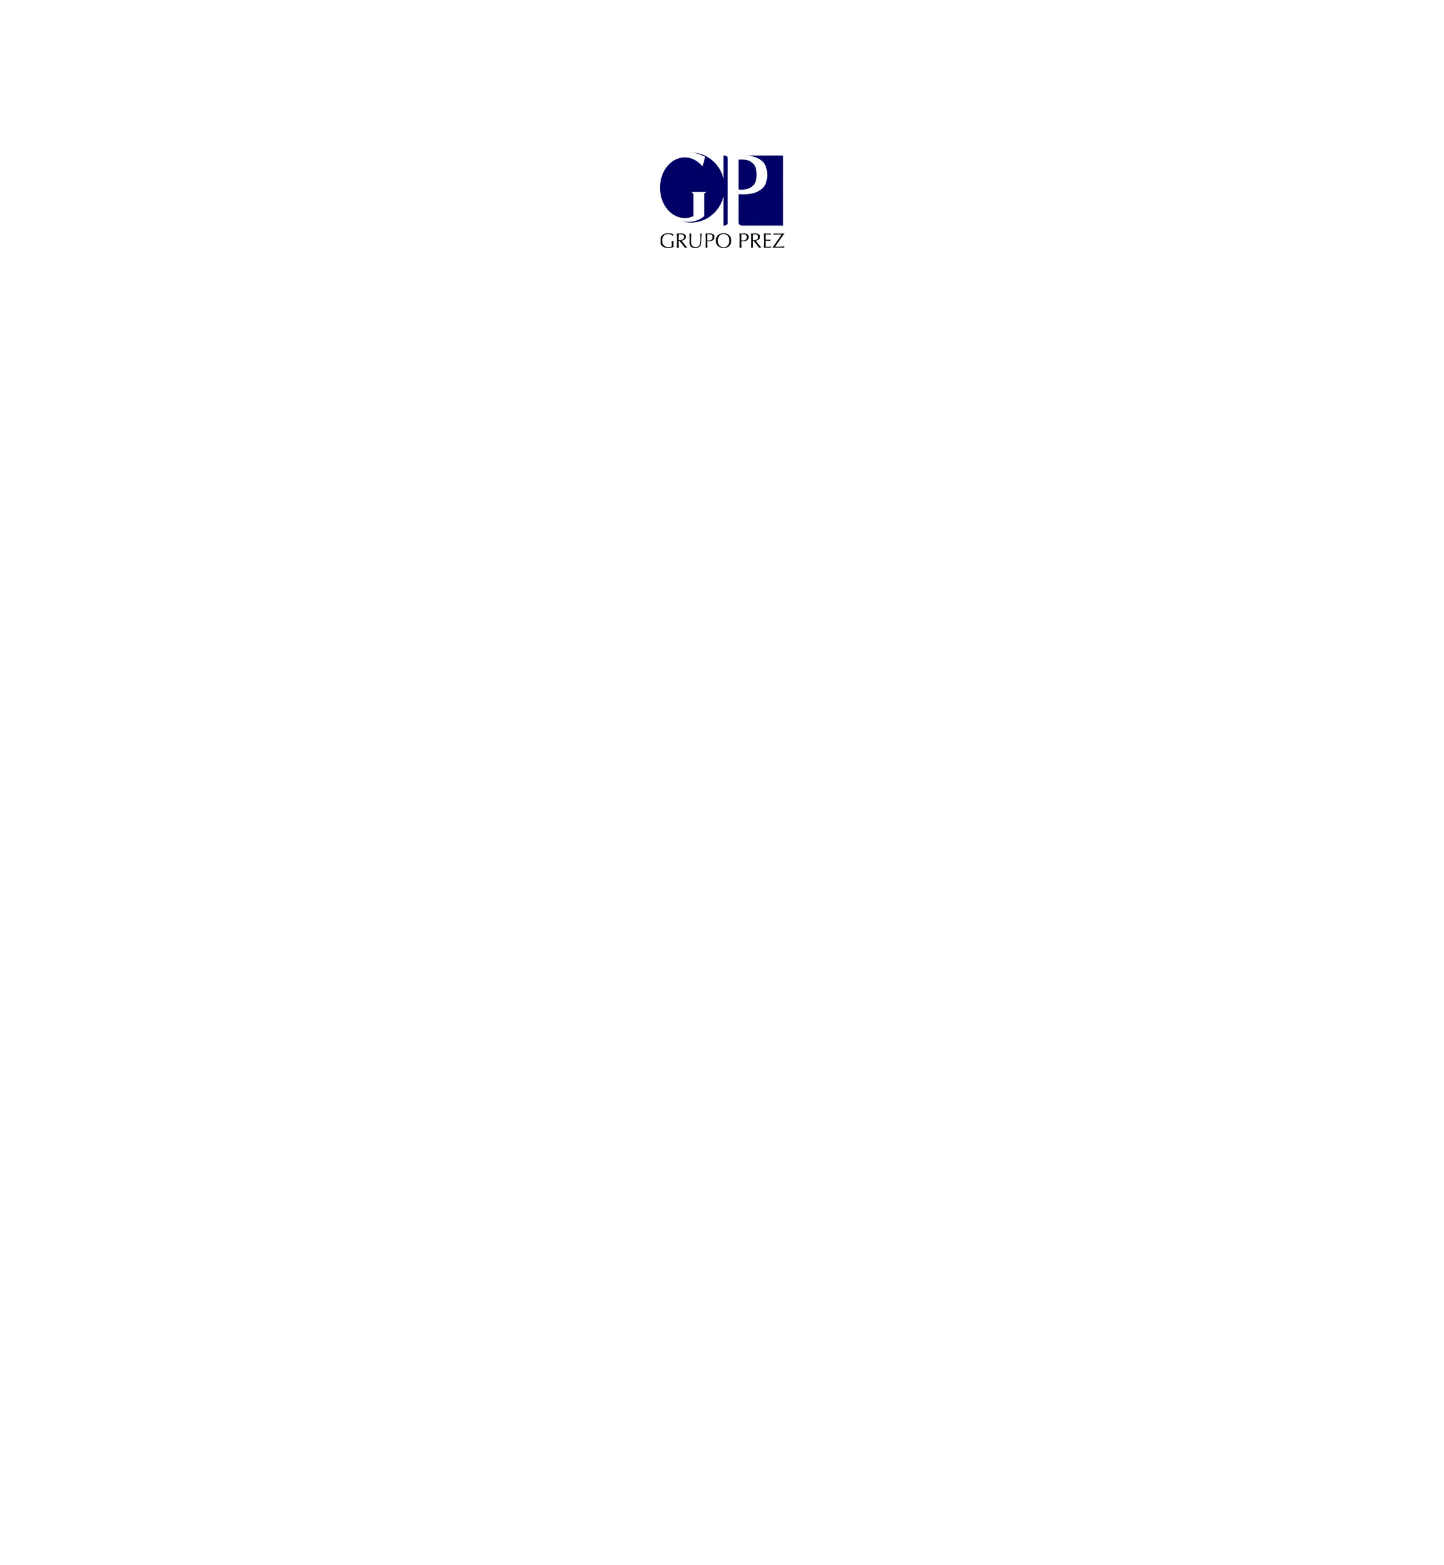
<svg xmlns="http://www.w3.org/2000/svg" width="1444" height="1565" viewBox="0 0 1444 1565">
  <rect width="100%" height="100%" fill="#ffffff"/>
  <image x="660" y="152" width="125" height="97" href="img1.png"/>
</svg>
